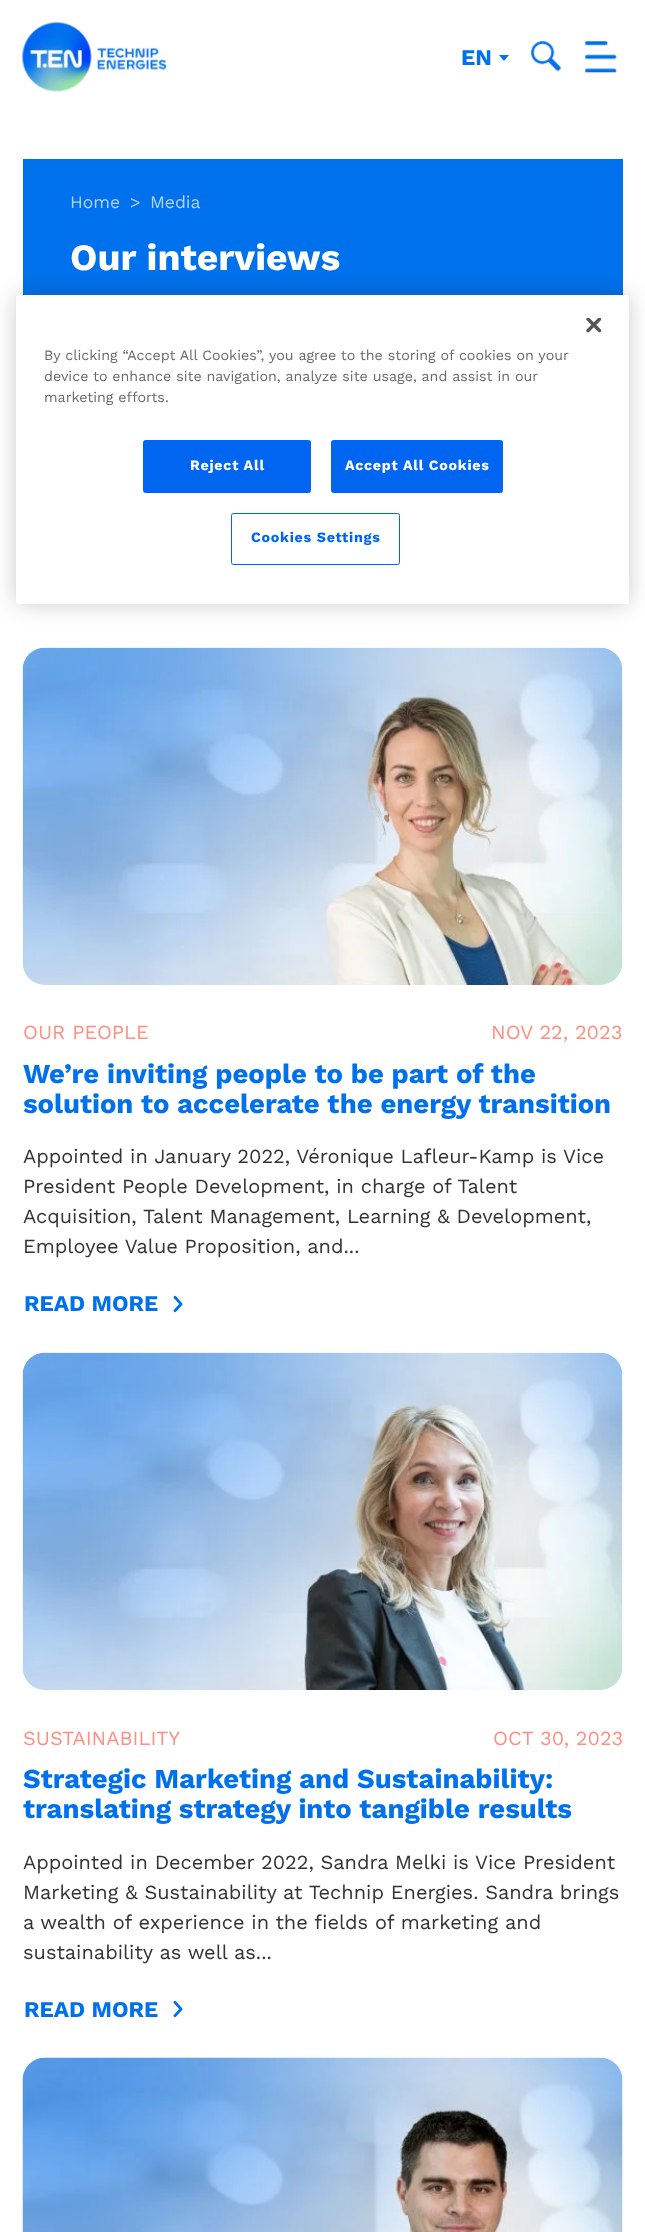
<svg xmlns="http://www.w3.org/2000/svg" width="645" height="2232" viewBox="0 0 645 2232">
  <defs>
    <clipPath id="clip1"><rect x="23" y="1353" width="600" height="671"/></clipPath>
    <filter id="blur1" x="-50%" y="-200%" width="200%" height="500%"><feGaussianBlur stdDeviation="11"/></filter>
  </defs>
  <rect width="100%" height="100%" fill="#ffffff"/>
  <image x="22" y="22" width="145" height="70" href="img1.png"/>
  <text x="461" y="65" font-family="Work Sans" font-size="22.5" font-weight="bold" fill="#0071ec">EN</text>
  <path d="M499 55H509L504 61Z" fill="#0071ec"/>
  <image x="531" y="41" width="31" height="31" href="img2.png"/>
  <image x="584" y="41" width="33" height="32" href="img3.png"/>
  <rect x="23" y="159" width="600" height="136" fill="#0071ec"/>
  <text x="70" y="208" font-family="Work Sans" font-size="17.5" fill="#b3d4f9">Home</text>
  <text x="130" y="208" font-family="Work Sans" font-size="17.5" fill="#b3d4f9">&gt;</text>
  <text x="150" y="208" font-family="Work Sans" font-size="17.5" fill="#b3d4f9">Media</text>
  <text x="70" y="270" font-family="Work Sans" font-size="37.25" font-weight="bold" fill="#ffffff">Our interviews</text>
  <image x="22" y="647" width="601" height="338" href="img4.png"/>
  <text x="23" y="1039" font-family="Work Sans" font-size="20" fill="#ff8f80">OUR PEOPLE</text>
  <text x="491" y="1039" font-family="Work Sans" font-size="20" fill="#ff8f80">NOV 22, 2023</text>
  <text x="23" y="1083" font-family="Work Sans" font-size="27.45" font-weight="bold" fill="#0071ec">We’re inviting people to be part of the</text>
  <text x="23" y="1113" font-family="Work Sans" font-size="27.45" font-weight="bold" fill="#0071ec">solution to accelerate the energy transition</text>
  <text x="23" y="1163" font-family="Work Sans" font-size="20" fill="#333333">Appointed in January 2022, Véronique Lafleur-Kamp is Vice</text>
  <text x="23" y="1193" font-family="Work Sans" font-size="20" fill="#333333">President People Development, in charge of Talent</text>
  <text x="23" y="1223" font-family="Work Sans" font-size="20" fill="#333333">Acquisition, Talent Management, Learning &amp; Development,</text>
  <text x="23" y="1253" font-family="Work Sans" font-size="20" fill="#333333">Employee Value Proposition, and...</text>
  <text x="24" y="1311" font-family="Work Sans" font-size="22.5" font-weight="bold" fill="#0071ec">READ MORE</text>
  <image x="173" y="1295" width="10" height="18" href="img5.png"/>
  <image x="22" y="1352" width="601" height="338" href="img6.png"/>
  <text x="23" y="1745" font-family="Work Sans" font-size="20" fill="#ff8f80">SUSTAINABILITY</text>
  <text x="493" y="1745" font-family="Work Sans" font-size="20" fill="#ff8f80">OCT 30, 2023</text>
  <text x="23" y="1788" font-family="Work Sans" font-size="27.45" font-weight="bold" fill="#0071ec">Strategic Marketing and Sustainability:</text>
  <g clip-path="url(#clip1)">
    <text x="23" y="1818" font-family="Work Sans" font-size="27.45" font-weight="bold" fill="#0071ec">translating strategy into tangible results</text>
  </g>
  <text x="23" y="1869" font-family="Work Sans" font-size="20" fill="#333333">Appointed in December 2022, Sandra Melki is Vice President</text>
  <text x="23" y="1899" font-family="Work Sans" font-size="20" fill="#333333">Marketing &amp; Sustainability at Technip Energies. Sandra brings</text>
  <text x="23" y="1929" font-family="Work Sans" font-size="20" fill="#333333">a wealth of experience in the fields of marketing and</text>
  <text x="23" y="1959" font-family="Work Sans" font-size="20" fill="#333333">sustainability as well as...</text>
  <text x="24" y="2017" font-family="Work Sans" font-size="22.5" font-weight="bold" fill="#0071ec">READ MORE</text>
  <image x="173" y="2000" width="10" height="18" href="img5.png"/>
  <image x="22" y="2057" width="601" height="175" href="img7.png"/>
  <rect x="16" y="295" width="613" height="309" rx="3" fill="#000000" fill-opacity="0.2" filter="url(#blur1)"/>
  <rect x="16" y="295" width="613" height="309" rx="3" fill="#ffffff"/>
  <image x="586" y="318" width="15" height="15" href="img8.png"/>
  <text x="44" y="360" font-family="Work Sans" font-size="14.25" fill="#696969">By clicking “Accept All Cookies”, you agree to the storing of cookies on your</text>
  <text x="44" y="381" font-family="Work Sans" font-size="14.25" fill="#696969">device to enhance site navigation, analyze site usage, and assist in our</text>
  <text x="44" y="402" font-family="Work Sans" font-size="14.25" fill="#696969">marketing efforts.</text>
  <rect x="143.5" y="440.5" width="167" height="52" rx="2" fill="#0066f2" stroke="#0066f2"/>
  <text x="190" y="470" font-family="Work Sans" font-size="14.25" font-weight="bold" letter-spacing="0.75" fill="#ffffff">Reject All</text>
  <rect x="331.5" y="440.5" width="171" height="52" rx="2" fill="#0066f2" stroke="#0066f2"/>
  <text x="345" y="470" font-family="Work Sans" font-size="14.25" font-weight="bold" letter-spacing="0.75" fill="#ffffff">Accept All Cookies</text>
  <rect x="231.5" y="513.5" width="168" height="51" rx="2" fill="none" stroke="#0066f2"/>
  <text x="251" y="542" font-family="Work Sans" font-size="14.25" font-weight="bold" letter-spacing="0.75" fill="#0066f2">Cookies Settings</text>
</svg>
